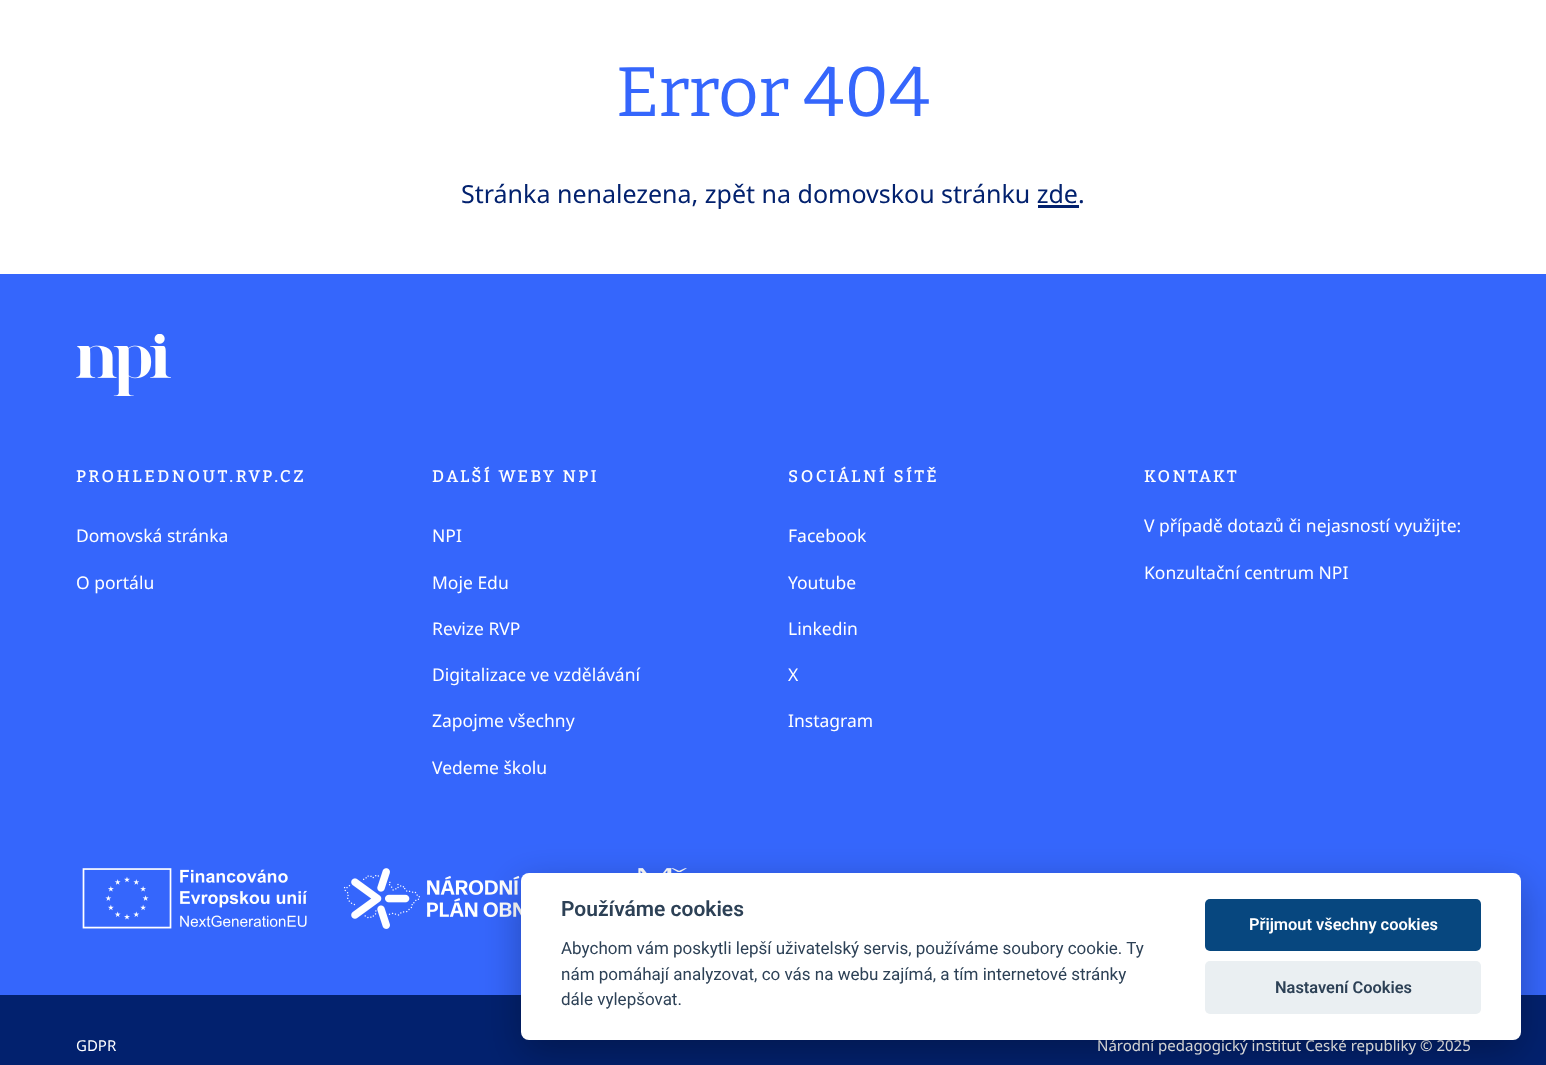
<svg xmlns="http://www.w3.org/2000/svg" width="1546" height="1065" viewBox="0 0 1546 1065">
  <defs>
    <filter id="blur1" x="-50%" y="-200%" width="200%" height="500%"><feGaussianBlur stdDeviation="19"/></filter>
  </defs>
  <rect width="100%" height="100%" fill="#ffffff"/>
  <text x="616" y="116" font-family="Bitter" font-size="70" fill="#3566fc">Error 404</text>
  <text x="461" y="203" font-family="Noto Sans" font-size="25" fill="#02216e">Stránka nenalezena, zpět na domovskou stránku zde.</text>
  <rect x="1038" y="205" width="41" height="3" fill="#02216e"/>
  <rect x="0" y="274" width="1546" height="721" fill="#3566fc"/>
  <image x="76" y="334" width="95" height="62" href="img1.png"/>
  <text x="76" y="482" font-family="Bitter" font-size="16.25" font-weight="bold" letter-spacing="2.9" fill="#ffffff">PROHLEDNOUT.RVP.CZ</text>
  <text x="76" y="542" font-family="Noto Sans" font-size="17.5" fill="#ffffff">Domovská stránka</text>
  <text x="76" y="589" font-family="Noto Sans" font-size="17.5" fill="#ffffff">O portálu</text>
  <text x="432" y="482" font-family="Bitter" font-size="16.25" font-weight="bold" letter-spacing="2.9" fill="#ffffff">DALŠÍ WEBY NPI</text>
  <text x="432" y="542" font-family="Noto Sans" font-size="17.5" fill="#ffffff">NPI</text>
  <text x="432" y="589" font-family="Noto Sans" font-size="17.5" fill="#ffffff">Moje Edu</text>
  <text x="432" y="635" font-family="Noto Sans" font-size="17.5" fill="#ffffff">Revize RVP</text>
  <text x="432" y="681" font-family="Noto Sans" font-size="17.5" fill="#ffffff">Digitalizace ve vzdělávání</text>
  <text x="432" y="727" font-family="Noto Sans" font-size="17.5" fill="#ffffff">Zapojme všechny</text>
  <text x="432" y="774" font-family="Noto Sans" font-size="17.5" fill="#ffffff">Vedeme školu</text>
  <text x="788" y="482" font-family="Bitter" font-size="16.25" font-weight="bold" letter-spacing="2.9" fill="#ffffff">SOCIÁLNÍ SÍTĚ</text>
  <text x="788" y="542" font-family="Noto Sans" font-size="17.5" fill="#ffffff">Facebook</text>
  <text x="788" y="589" font-family="Noto Sans" font-size="17.5" fill="#ffffff">Youtube</text>
  <text x="788" y="635" font-family="Noto Sans" font-size="17.5" fill="#ffffff">Linkedin</text>
  <text x="788" y="681" font-family="Noto Sans" font-size="17.5" fill="#ffffff">X</text>
  <text x="788" y="727" font-family="Noto Sans" font-size="17.5" fill="#ffffff">Instagram</text>
  <text x="1144" y="482" font-family="Bitter" font-size="16.25" font-weight="bold" letter-spacing="2.9" fill="#ffffff">KONTAKT</text>
  <text x="1144" y="532" font-family="Noto Sans" font-size="17.5" fill="#ffffff">V případě dotazů či nejasností využijte:</text>
  <text x="1144" y="579" font-family="Noto Sans" font-size="17.5" fill="#ffffff">Konzultační centrum NPI</text>
  <image x="82" y="868" width="605" height="61" href="img2.png"/>
  <rect x="0" y="995" width="1546" height="70" fill="#02216e"/>
  <text x="76" y="1051" font-family="Noto Sans" font-size="15" fill="#ffffff">GDPR</text>
  <text x="1097" y="1051" font-family="Noto Sans" font-size="15" fill="#ffffff">Národní pedagogický institut České republiky © 2025</text>
  <rect x="521" y="885" width="1000" height="168" rx="8" fill="#020203" fill-opacity="0.28" filter="url(#blur1)"/>
  <rect x="521" y="873" width="1000" height="167" rx="8" fill="#ffffff"/>
  <text x="561" y="916" font-family="Roboto" font-size="21" font-weight="600" fill="#2d4156">Používáme cookies</text>
  <text x="561" y="954" font-family="Roboto" font-size="17" fill="#2d4156">Abychom vám poskytli lepší uživatelský servis, používáme soubory cookie. Ty</text>
  <text x="561" y="980" font-family="Roboto" font-size="17" fill="#2d4156">nám pomáhají analyzovat, co vás na webu zajímá, a tím internetové stránky</text>
  <text x="561" y="1005" font-family="Roboto" font-size="17" fill="#2d4156">dále vylepšovat.</text>
  <rect x="1205" y="899" width="276" height="52" rx="5" fill="#07477f"/>
  <text x="1249" y="930" font-family="Roboto" font-size="16.4" font-weight="600" fill="#ffffff">Přijmout všechny cookies</text>
  <rect x="1205" y="961" width="276" height="53" rx="5" fill="#eaeff2"/>
  <text x="1275" y="993" font-family="Roboto" font-size="16.4" font-weight="600" fill="#2d4156">Nastavení Cookies</text>
</svg>
